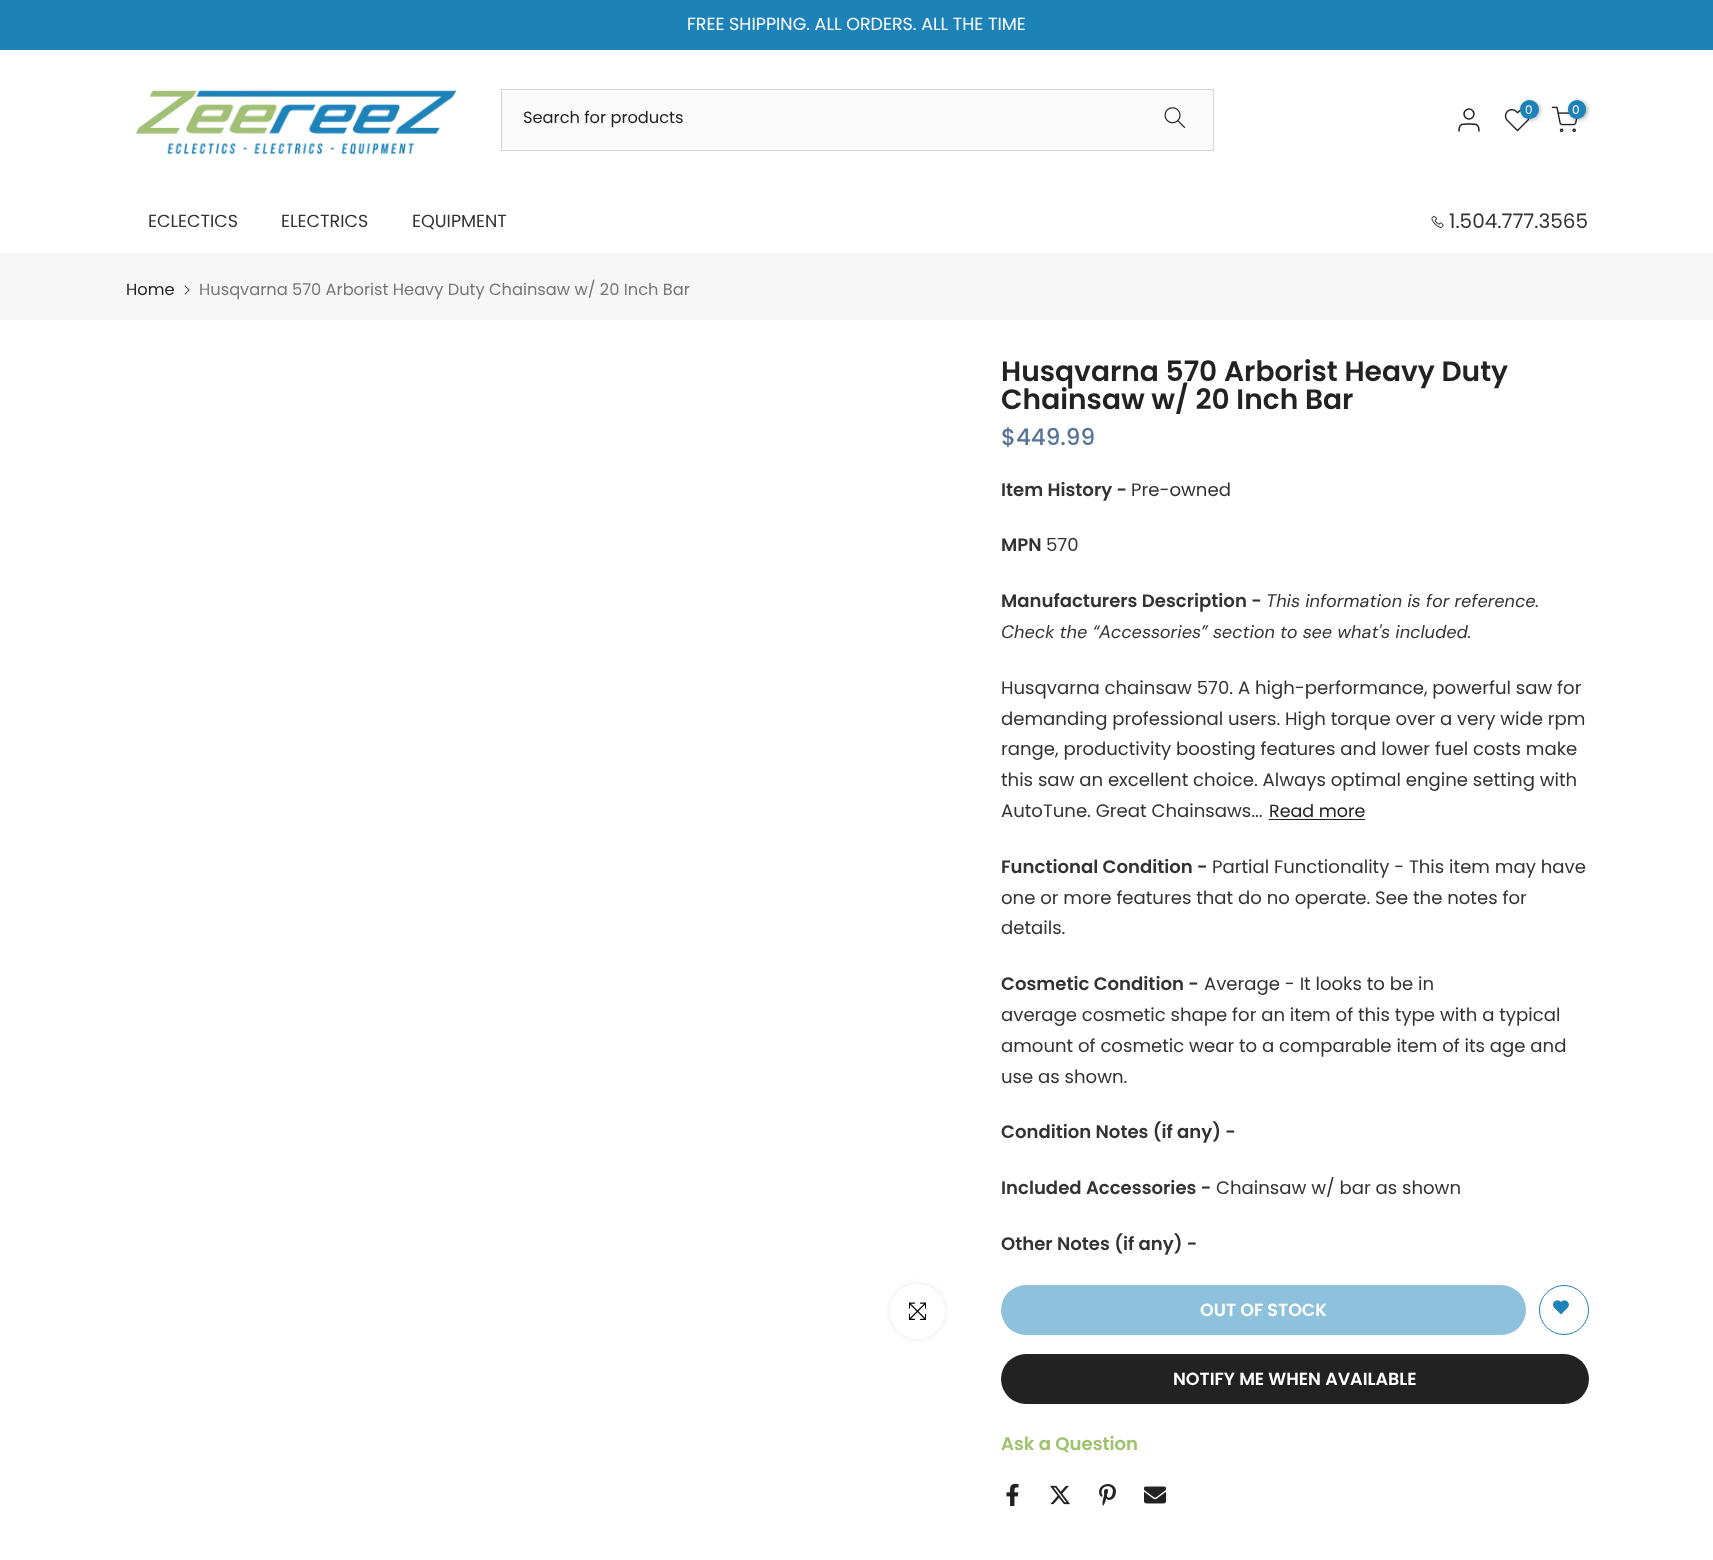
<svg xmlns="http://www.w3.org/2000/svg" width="1713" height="1560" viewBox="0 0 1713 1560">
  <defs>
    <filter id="blur1" x="-50%" y="-200%" width="200%" height="500%"><feGaussianBlur stdDeviation="2"/></filter>
    <filter id="blur2" x="-50%" y="-200%" width="200%" height="500%"><feGaussianBlur stdDeviation="3"/></filter>
  </defs>
  <rect width="100%" height="100%" fill="#ffffff"/>
  <rect x="0" y="0" width="1713" height="50" fill="#1d82b8"/>
  <text x="687" y="30" font-family="Poppins" font-size="17.5" fill="#ffffff">FREE SHIPPING. ALL ORDERS. ALL THE TIME</text>
  <image x="135" y="90" width="322" height="65" href="img1.png"/>
  <circle cx="1469" cy="114" r="5" fill="none" stroke="#222222" stroke-width="1.5"/>
  <path d="M1479 131C1479 123.5 1475.5 124 1469 124C1462 124 1459 123.5 1459 131" fill="none" stroke="#222222" stroke-width="1.5" stroke-linecap="round" stroke-linejoin="round"/>
  <image x="1504" y="109" width="26" height="23" href="img2.png"/>
  <rect x="1521" y="101" width="19" height="19" rx="9.5" fill="#000000" fill-opacity="0.3" filter="url(#blur1)"/>
  <circle cx="1529.5" cy="109.5" r="9.5" fill="#1d82b8"/>
  <text x="1525" y="114" font-family="Poppins" font-size="12" fill="#ffffff">0</text>
  <image x="1551" y="106" width="27" height="27" href="img3.png"/>
  <rect x="1569" y="101" width="19" height="19" rx="9.5" fill="#000000" fill-opacity="0.3" filter="url(#blur1)"/>
  <rect x="1568" y="100" width="18" height="19" rx="9" fill="#1d82b8"/>
  <text x="1572" y="114" font-family="Poppins" font-size="12" fill="#ffffff">0</text>
  <rect x="501.5" y="89.5" width="712" height="61" fill="#fafafa" stroke="#d4d4d4"/>
  <text x="523" y="123" font-family="Poppins" font-size="16.25" fill="#222222">Search for products</text>
  <image x="1164" y="107" width="22" height="21" href="img4.png"/>
  <text x="148" y="227" font-family="Poppins" font-size="17.5" fill="#333333">ECLECTICS</text>
  <text x="281" y="227" font-family="Poppins" font-size="17.5" fill="#333333">ELECTRICS</text>
  <text x="412" y="227" font-family="Poppins" font-size="17.5" fill="#333333">EQUIPMENT</text>
  <image x="1431" y="215" width="13" height="13" href="img5.png"/>
  <text x="1449" y="228" font-family="Poppins" font-size="20" fill="#333333">1.504.777.3565</text>
  <rect x="0" y="253" width="1713" height="67" fill="#f6f6f6"/>
  <text x="126" y="295" font-family="Poppins" font-size="16.25" fill="#222222">Home</text>
  <image x="184" y="285" width="6" height="10" href="img6.png"/>
  <text x="199" y="295" font-family="Poppins" font-size="16.25" fill="#777777">Husqvarna 570 Arborist Heavy Duty Chainsaw w/ 20 Inch Bar</text>
  <rect x="890" y="1284" width="55" height="55" rx="27.5" fill="#000000" fill-opacity="0.09" filter="url(#blur2)"/>
  <circle cx="917.5" cy="1311.5" r="27.5" fill="#ffffff"/>
  <image x="909" y="1302" width="17" height="18" href="img7.png"/>
  <text x="1001" y="381" font-family="Poppins" font-size="28.1" font-weight="600" fill="#222222">Husqvarna 570 Arborist Heavy Duty</text>
  <text x="1001" y="409" font-family="Poppins" font-size="28.1" font-weight="600" fill="#222222">Chainsaw w/ 20 Inch Bar</text>
  <text x="1001" y="445" font-family="Poppins" font-size="23" font-weight="500" fill="#567599">$449.99</text>
  <text x="1001" y="496" font-family="Poppins" font-size="18.1" font-weight="600" fill="#333333">Item History -</text>
  <text x="1131" y="496" font-family="Poppins" font-size="18.1" fill="#333333">Pre-owned</text>
  <text x="1001" y="551" font-family="Poppins" font-size="18.1" font-weight="600" fill="#333333">MPN</text>
  <text x="1046" y="551" font-family="Poppins" font-size="18.1" fill="#333333">570</text>
  <text x="1001" y="607" font-family="Poppins" font-size="18.1" font-weight="600" fill="#333333">Manufacturers Description -</text>
  <text x="1266" y="607" font-family="DM Sans" font-size="18.1" font-style="italic" fill="#333333">This information is for reference.</text>
  <text x="1001" y="638" font-family="DM Sans" font-size="18.1" font-style="italic" fill="#333333">Check the “Accessories” section to see what's included.</text>
  <text x="1001" y="694" font-family="Poppins" font-size="18.1" fill="#333333">Husqvarna chainsaw 570. A high-performance, powerful saw for</text>
  <text x="1001" y="725" font-family="Poppins" font-size="18.1" fill="#333333">demanding professional users. High torque over a very wide rpm</text>
  <text x="1001" y="755" font-family="Poppins" font-size="18.1" fill="#333333">range, productivity boosting features and lower fuel costs make</text>
  <text x="1001" y="786" font-family="Poppins" font-size="18.1" fill="#333333">this saw an excellent choice. Always optimal engine setting with</text>
  <text x="1001" y="817" font-family="Poppins" font-size="18.1" fill="#333333">AutoTune. Great Chainsaws...</text>
  <text x="1269" y="817" font-family="Poppins" font-size="17.5" fill="#222222">Read more</text>
  <rect x="1269" y="819" width="96" height="1" fill="#222222"/>
  <text x="1001" y="873" font-family="Poppins" font-size="18.1" font-weight="600" fill="#333333">Functional Condition -</text>
  <text x="1212" y="873" font-family="Poppins" font-size="18.1" fill="#333333">Partial Functionality - This item may have</text>
  <text x="1001" y="904" font-family="Poppins" font-size="18.1" fill="#333333">one or more features that do no operate. See the notes for</text>
  <text x="1001" y="934" font-family="Poppins" font-size="18.1" fill="#333333">details.</text>
  <text x="1001" y="990" font-family="Poppins" font-size="18.1" font-weight="600" fill="#333333">Cosmetic Condition -</text>
  <text x="1204" y="990" font-family="Poppins" font-size="18.1" fill="#333333">Average - It looks to be in</text>
  <text x="1001" y="1021" font-family="Poppins" font-size="18.1" fill="#333333">average cosmetic shape for an item of this type with a typical</text>
  <text x="1001" y="1052" font-family="Poppins" font-size="18.1" fill="#333333">amount of cosmetic wear to a comparable item of its age and</text>
  <text x="1001" y="1083" font-family="Poppins" font-size="18.1" fill="#333333">use as shown.</text>
  <text x="1001" y="1138" font-family="Poppins" font-size="18.1" font-weight="600" fill="#333333">Condition Notes (if any) -</text>
  <text x="1001" y="1194" font-family="Poppins" font-size="18.1" font-weight="600" fill="#333333">Included Accessories -</text>
  <text x="1216" y="1194" font-family="Poppins" font-size="18.1" fill="#333333">Chainsaw w/ bar as shown</text>
  <text x="1001" y="1250" font-family="Poppins" font-size="18.1" font-weight="600" fill="#333333">Other Notes (if any) -</text>
  <rect x="1001" y="1285" width="525" height="50" rx="25" fill="#8ec1dc"/>
  <text x="1200" y="1316" font-family="Poppins" font-size="17.5" font-weight="600" fill="#ffffff">OUT OF STOCK</text>
  <circle cx="1564" cy="1310" r="24.5" fill="none" stroke="#1d82b8"/>
  <image x="1553" y="1300" width="16" height="15" href="img8.png"/>
  <rect x="1001" y="1354" width="588" height="50" rx="25" fill="#222222"/>
  <text x="1173" y="1385" font-family="Poppins" font-size="17.5" font-weight="600" fill="#ffffff">NOTIFY ME WHEN AVAILABLE</text>
  <text x="1001" y="1450" font-family="Poppins" font-size="18.1" font-weight="600" fill="#9fc26d">Ask a Question</text>
  <image x="1006" y="1484" width="13" height="22" href="img9.png"/>
  <image x="1050" y="1485" width="20" height="20" href="img10.png"/>
  <image x="1099" y="1484" width="17" height="22" href="img11.png"/>
  <image x="1144" y="1486" width="22" height="18" href="img12.png"/>
</svg>
